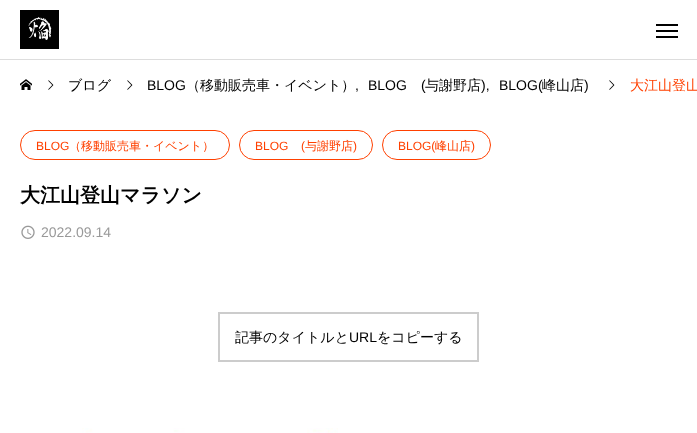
<svg xmlns="http://www.w3.org/2000/svg" width="697" height="433" viewBox="0 0 697 433">
  <rect width="100%" height="100%" fill="#ffffff"/>
  <rect x="0" y="59" width="697" height="1" fill="#dddddd"/>
  <image x="20" y="10" width="39" height="39" href="img1.png"/>
  <rect x="656" y="24" width="22" height="2" fill="#000000"/>
  <rect x="656" y="30" width="22" height="2" fill="#000000"/>
  <rect x="656" y="36" width="22" height="2" fill="#000000"/>
  <image x="20" y="79" width="12" height="11" href="img2.png"/>
  <image x="48" y="80" width="6" height="10" href="img3.png"/>
  <text x="68" y="90" font-family="WenQuanYi Zen Hei" font-size="14" font-weight="500" fill="#000000">ブログ</text>
  <image x="127" y="80" width="6" height="10" href="img3.png"/>
  <text x="147" y="90" font-family="Liberation Sans" font-size="14" fill="#000000">BLOG</text>
  <text x="186" y="90" font-family="WenQuanYi Zen Hei" font-size="14" font-weight="500" fill="#000000">（移動販売車・イベント）</text>
  <text x="355" y="90" font-family="Liberation Sans" font-size="14" fill="#000000">,</text>
  <text x="368" y="90" font-family="Liberation Sans" font-size="14" fill="#000000">BLOG</text>
  <text x="421" y="90" font-family="Liberation Sans" font-size="14" fill="#000000">(</text>
  <text x="425" y="90" font-family="WenQuanYi Zen Hei" font-size="14" font-weight="500" fill="#000000">与謝野店</text>
  <text x="481" y="90" font-family="Liberation Sans" font-size="14" fill="#000000">),</text>
  <text x="499" y="90" font-family="Liberation Sans" font-size="14" fill="#000000">BLOG(</text>
  <text x="542" y="90" font-family="WenQuanYi Zen Hei" font-size="14" font-weight="500" fill="#000000">峰山店</text>
  <text x="584" y="90" font-family="Liberation Sans" font-size="14" fill="#000000">)</text>
  <image x="609" y="80" width="6" height="10" href="img3.png"/>
  <text x="630" y="90" font-family="WenQuanYi Zen Hei" font-size="14" font-weight="500" fill="#ff4000">大江山登山</text>
  <rect x="20.5" y="130.5" width="209" height="29" rx="14.5" fill="none" stroke="#ff4000"/>
  <text x="36" y="150" font-family="Liberation Sans" font-size="12" fill="#ff4000">BLOG</text>
  <text x="69" y="150" font-family="WenQuanYi Zen Hei" font-size="12" font-weight="500" fill="#ff4000">（移動販売車・イベント）</text>
  <rect x="239.5" y="130.5" width="133" height="29" rx="14.5" fill="none" stroke="#ff4000"/>
  <text x="255" y="150" font-family="Liberation Sans" font-size="12" fill="#ff4000">BLOG</text>
  <text x="301" y="150" font-family="Liberation Sans" font-size="12" fill="#ff4000">(</text>
  <text x="305" y="150" font-family="WenQuanYi Zen Hei" font-size="12" font-weight="500" fill="#ff4000">与謝野店</text>
  <text x="353" y="150" font-family="Liberation Sans" font-size="12" fill="#ff4000">)</text>
  <rect x="382.5" y="130.5" width="108" height="29" rx="14.5" fill="none" stroke="#ff4000"/>
  <text x="398" y="150" font-family="Liberation Sans" font-size="12" fill="#ff4000">BLOG(</text>
  <text x="435" y="150" font-family="WenQuanYi Zen Hei" font-size="12" font-weight="500" fill="#ff4000">峰山店</text>
  <text x="471" y="150" font-family="Liberation Sans" font-size="12" fill="#ff4000">)</text>
  <text x="20" y="202" font-family="WenQuanYi Zen Hei" font-size="20" font-weight="bold" fill="#000000">大江山登山マラソン</text>
  <image x="21" y="225" width="14" height="14" href="img4.png"/>
  <text x="41" y="237" font-family="Liberation Sans" font-size="14" fill="#999999">2022.09.14</text>
  <rect x="219" y="313" width="259" height="48" fill="none" stroke="#cccccc" stroke-width="2"/>
  <text x="235" y="342" font-family="WenQuanYi Zen Hei" font-size="14" font-weight="500" fill="#000000">記事のタイトルと</text>
  <text x="349" y="342" font-family="Liberation Sans" font-size="14" fill="#000000">URL</text>
  <text x="377" y="342" font-family="WenQuanYi Zen Hei" font-size="14" font-weight="500" fill="#000000">をコピーする</text>
  <image x="82" y="428" width="256" height="5" href="img5.png"/>
</svg>
